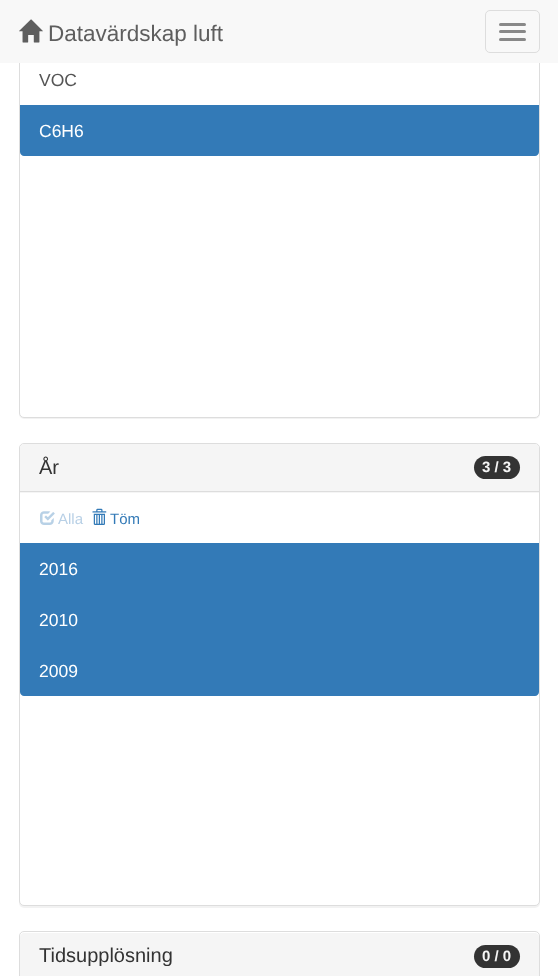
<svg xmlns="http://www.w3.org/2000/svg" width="558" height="976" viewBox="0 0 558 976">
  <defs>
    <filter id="blur1" x="-50%" y="-200%" width="200%" height="500%"><feGaussianBlur stdDeviation="0.5"/></filter>
    <clipPath id="clip1"><rect x="39" y="945" width="435" height="21"/></clipPath>
  </defs>
  <rect width="100%" height="100%" fill="#ffffff"/>
  <rect x="19" y="-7" width="521" height="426" rx="5" fill="#000000" fill-opacity="0.05" filter="url(#blur1)"/>
  <rect x="19.5" y="-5.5" width="520" height="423" rx="4.5" fill="#ffffff" stroke="#dddddd"/>
  <rect x="0" y="0" width="558" height="63" fill="#f8f8f8"/>
  <image x="19" y="19" width="24" height="24" href="img1.png"/>
  <text x="48" y="41" font-family="Liberation Sans" font-size="22.5" fill="#5e5e5e">Datavärdskap luft</text>
  <rect x="485.5" y="10.5" width="54" height="42" rx="4.5" fill="none" stroke="#dddddd"/>
  <rect x="499" y="23" width="27" height="3" rx="1.5" fill="#888888"/>
  <rect x="499" y="30" width="27" height="3" rx="1.5" fill="#888888"/>
  <rect x="499" y="38" width="27" height="3" rx="1.5" fill="#888888"/>
  <text x="39" y="86" font-family="Liberation Sans" font-size="17.5" fill="#555555">VOC</text>
  <path d="M20 105H539V152C539 154 537 156 535 156H24C22 156 20 154 20 152Z" fill="#337ab7"/>
  <text x="39" y="137" font-family="Liberation Sans" font-size="17.5" fill="#ffffff">C6H6</text>
  <rect x="19" y="444" width="521" height="464" rx="5" fill="#000000" fill-opacity="0.05" filter="url(#blur1)"/>
  <rect x="19.5" y="443.5" width="520" height="462" rx="4.5" fill="#ffffff" stroke="#dddddd"/>
  <path d="M24 444H535C537 444 539 446 539 448V493H20V448C20 446 22 444 24 444Z" fill="#f5f5f5"/>
  <rect x="20" y="491" width="519" height="1" fill="#dddddd"/>
  <text x="39" y="474" font-family="Liberation Sans" font-size="20" fill="#333333">År</text>
  <rect x="474" y="456" width="46" height="23" rx="11.5" fill="#333333"/>
  <text x="482" y="472" font-family="Liberation Sans" font-size="15" font-weight="bold" fill="#f5f5f5">3 / 3</text>
  <image x="40" y="511" width="15" height="14" href="img2.png"/>
  <text x="58" y="524" font-family="Liberation Sans" font-size="15" fill="#b8d0e6">Alla</text>
  <image x="92" y="508" width="15" height="17" href="img3.png"/>
  <text x="110" y="524" font-family="Liberation Sans" font-size="15" fill="#337ab7">Töm</text>
  <rect x="20" y="543" width="519" height="102" fill="#337ab7"/>
  <text x="39" y="575" font-family="Liberation Sans" font-size="17.5" fill="#ffffff">2016</text>
  <text x="39" y="626" font-family="Liberation Sans" font-size="17.5" fill="#ffffff">2010</text>
  <path d="M20 645H539V692C539 694 537 696 535 696H24C22 696 20 694 20 692Z" fill="#337ab7"/>
  <text x="39" y="677" font-family="Liberation Sans" font-size="17.5" fill="#ffffff">2009</text>
  <rect x="19.5" y="931.5" width="520" height="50" rx="4.5" fill="none" stroke="#dddddd"/>
  <path d="M24 933H535C537 933 539 935 539 937V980H20V937C20 935 22 933 24 933Z" fill="#f5f5f5"/>
  <g clip-path="url(#clip1)">
    <text x="39" y="962" font-family="Liberation Sans" font-size="20" fill="#333333">Tidsupplösning</text>
  </g>
  <rect x="474" y="945" width="46" height="23" rx="11.5" fill="#333333"/>
  <text x="482" y="961" font-family="Liberation Sans" font-size="15" font-weight="bold" fill="#f5f5f5">0 / 0</text>
</svg>
